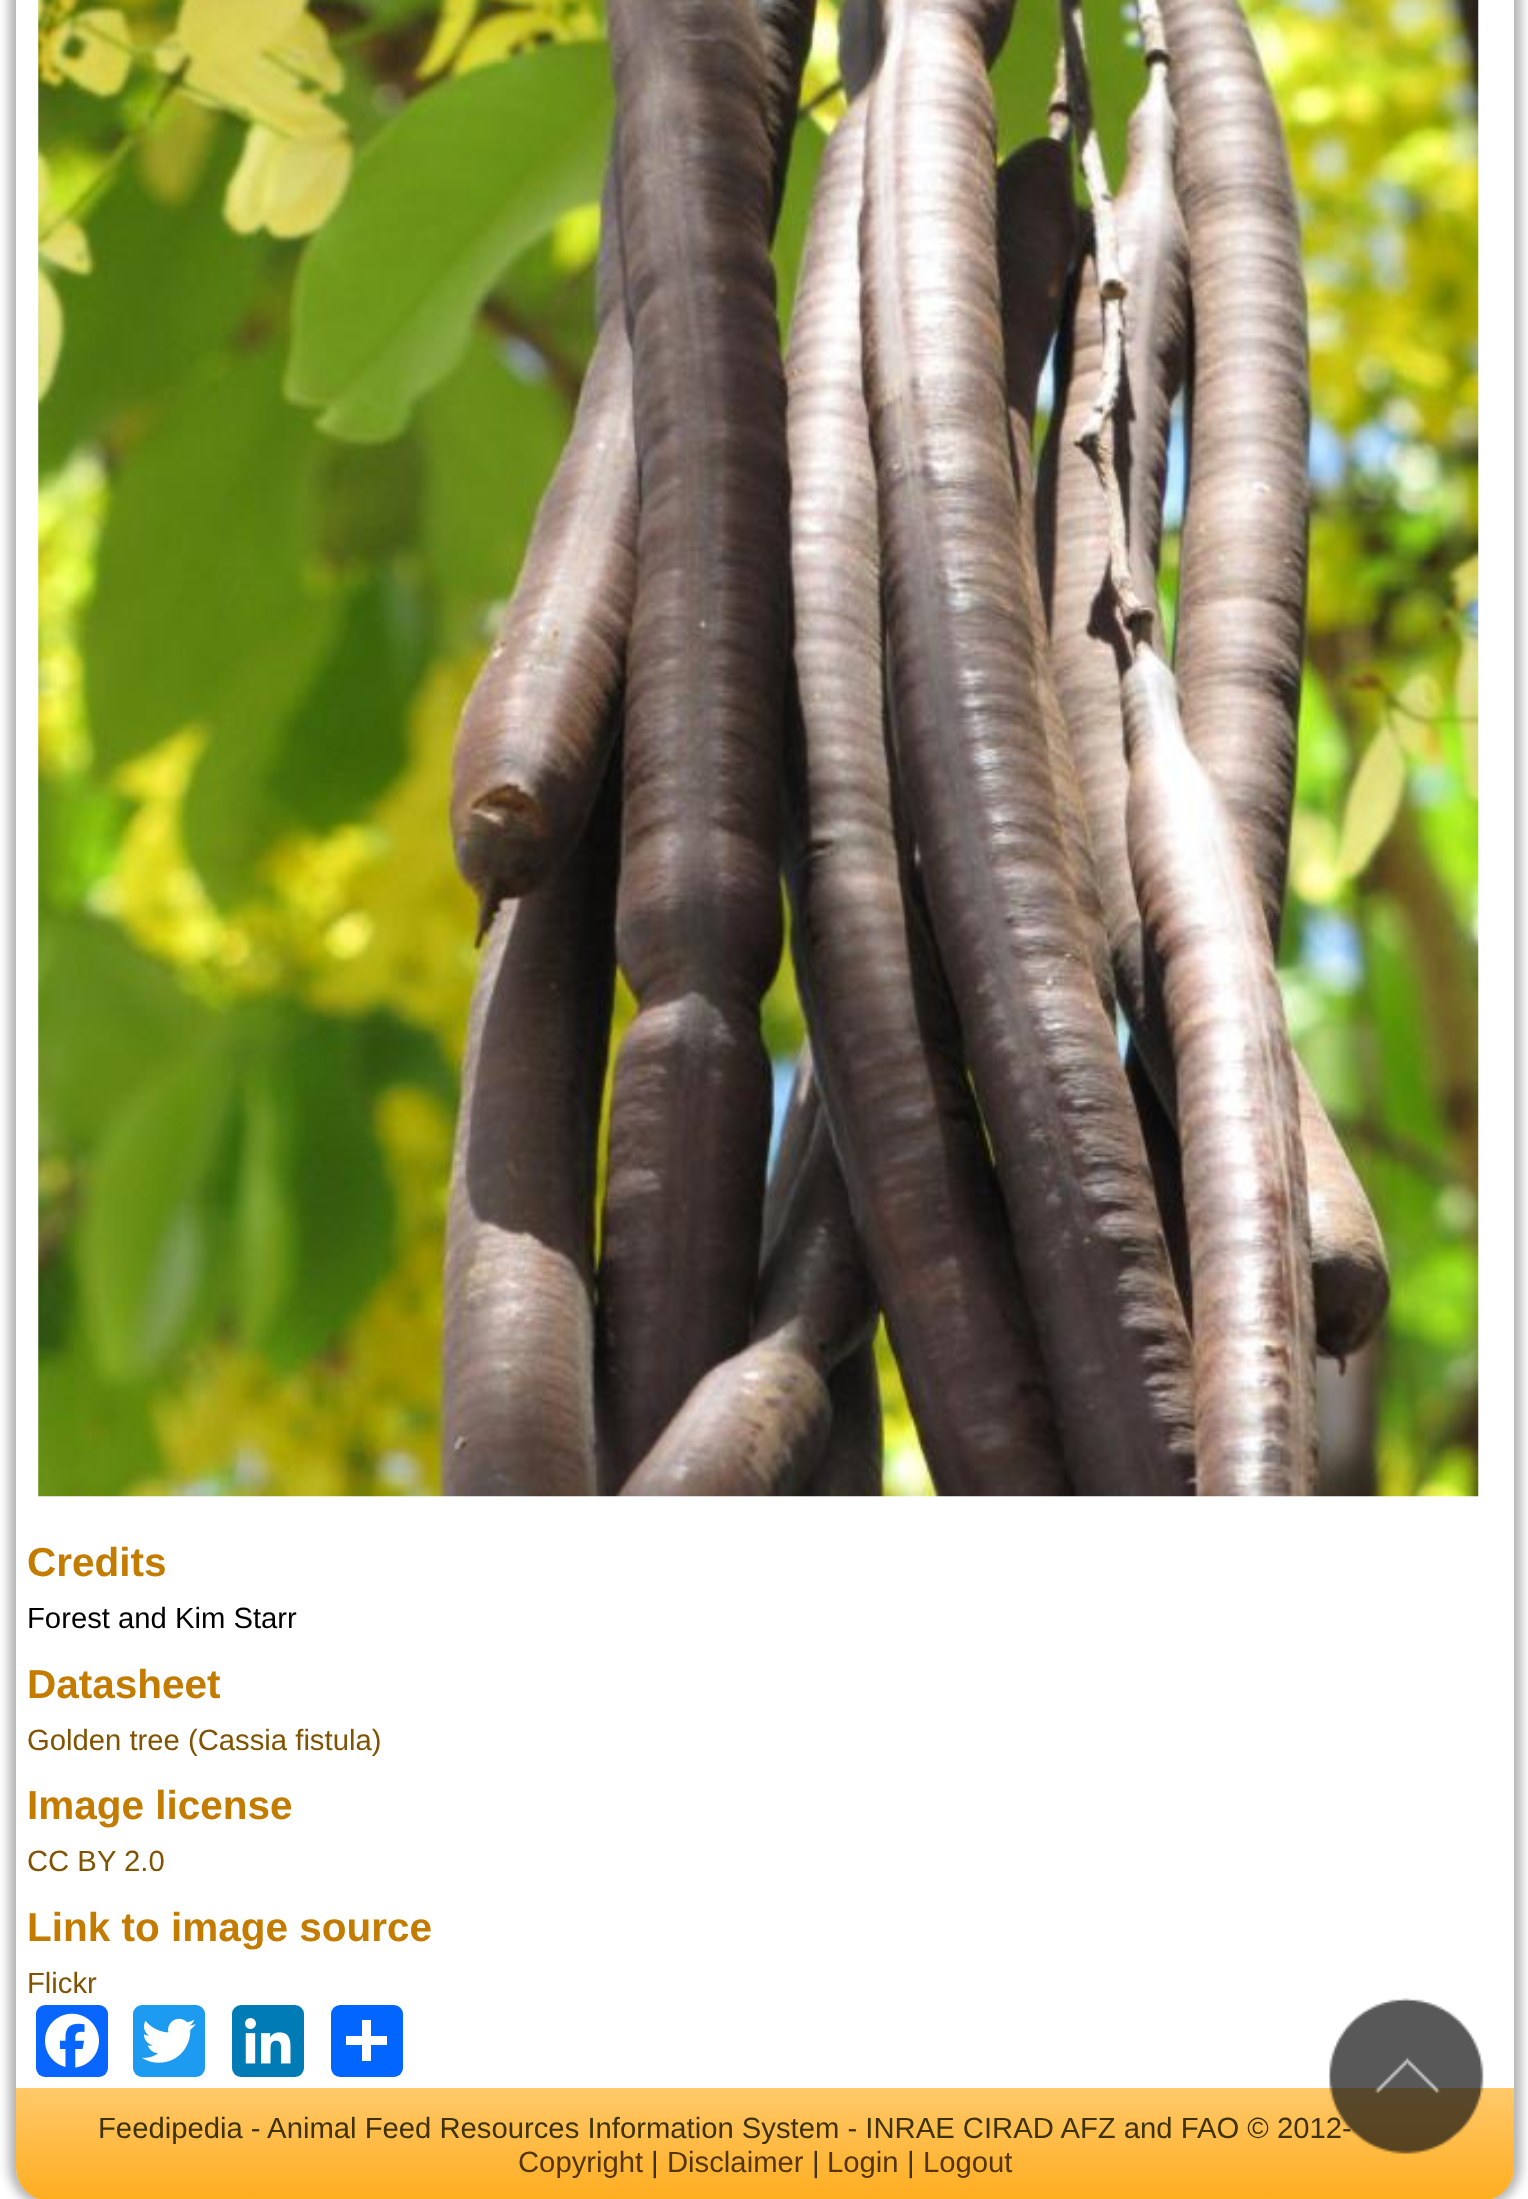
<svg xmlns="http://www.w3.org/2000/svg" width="1528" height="2199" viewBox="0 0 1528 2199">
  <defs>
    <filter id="blur1" x="-50%" y="-200%" width="200%" height="500%"><feGaussianBlur stdDeviation="5.5"/></filter>
    <linearGradient id="g1" gradientUnits="userSpaceOnUse" x1="765" y1="2088" x2="765" y2="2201"><stop offset="0" stop-color="#ffc96b"/><stop offset="1" stop-color="#ffad1f"/></linearGradient>
  </defs>
  <rect width="100%" height="100%" fill="#ffffff"/>
  <rect x="9" y="-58" width="1512" height="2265" rx="41" fill="#000000" fill-opacity="0.3" filter="url(#blur1)"/>
  <rect x="16" y="-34" width="1498" height="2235" rx="34" fill="#ffffff"/>
  <image x="38" y="0" width="1441" height="1497" href="img1.png"/>
  <text x="27" y="1576" font-family="Liberation Sans" font-size="40.5" font-weight="bold" fill="#c47c00">Credits</text>
  <text x="27" y="1628" font-family="Liberation Sans" font-size="29.25" fill="#000000">Forest and Kim Starr</text>
  <text x="27" y="1698" font-family="Liberation Sans" font-size="40.5" font-weight="bold" fill="#c47c00">Datasheet</text>
  <text x="27" y="1750" font-family="Liberation Sans" font-size="29.25" fill="#815200">Golden tree (Cassia fistula)</text>
  <text x="27" y="1819" font-family="Liberation Sans" font-size="40.5" font-weight="bold" fill="#c47c00">Image license</text>
  <text x="27" y="1871" font-family="Liberation Sans" font-size="29.25" fill="#815200">CC BY 2.0</text>
  <text x="27" y="1941" font-family="Liberation Sans" font-size="40.5" font-weight="bold" fill="#c47c00">Link to image source</text>
  <text x="27" y="1993" font-family="Liberation Sans" font-size="29.25" fill="#815200">Flickr</text>
  <rect x="36" y="2005" width="72" height="72" rx="9" fill="#0866ff"/>
  <image x="45" y="2013" width="54" height="55" href="img2.png"/>
  <rect x="133" y="2005" width="72" height="72" rx="9" fill="#1d9bf0"/>
  <image x="142" y="2018" width="54" height="45" href="img3.png"/>
  <rect x="232" y="2005" width="72" height="72" rx="9" fill="#007bb5"/>
  <image x="245" y="2018" width="46" height="46" href="img4.png"/>
  <rect x="331" y="2005" width="72" height="72" rx="9" fill="#0166ff"/>
  <rect x="362" y="2020" width="9" height="41" fill="#ffffff"/>
  <rect x="346" y="2036" width="41" height="9" fill="#ffffff"/>
  <path d="M16 2088H1514V2167C1514 2186 1499 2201 1480 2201H50C31 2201 16 2186 16 2167Z" fill="url(#g1)"/>
  <text x="98" y="2138" font-family="Liberation Sans" font-size="29.25" fill="#3e3200">Feedipedia - Animal Feed Resources Information System - INRAE CIRAD AFZ and FAO © 2012-</text>
  <text x="518" y="2172" font-family="Liberation Sans" font-size="29.25" fill="#543500">Copyright</text>
  <text x="651" y="2172" font-family="Liberation Sans" font-size="29.25" fill="#3e3200">|</text>
  <text x="667" y="2172" font-family="Liberation Sans" font-size="29.25" fill="#543500">Disclaimer</text>
  <text x="812" y="2172" font-family="Liberation Sans" font-size="29.25" fill="#3e3200">|</text>
  <text x="827" y="2172" font-family="Liberation Sans" font-size="29.25" fill="#543500">Login</text>
  <text x="907" y="2172" font-family="Liberation Sans" font-size="29.25" fill="#3e3200">|</text>
  <text x="923" y="2172" font-family="Liberation Sans" font-size="29.25" fill="#543500">Logout</text>
  <image x="1328" y="1998" width="156" height="156" href="img5.png"/>
</svg>
